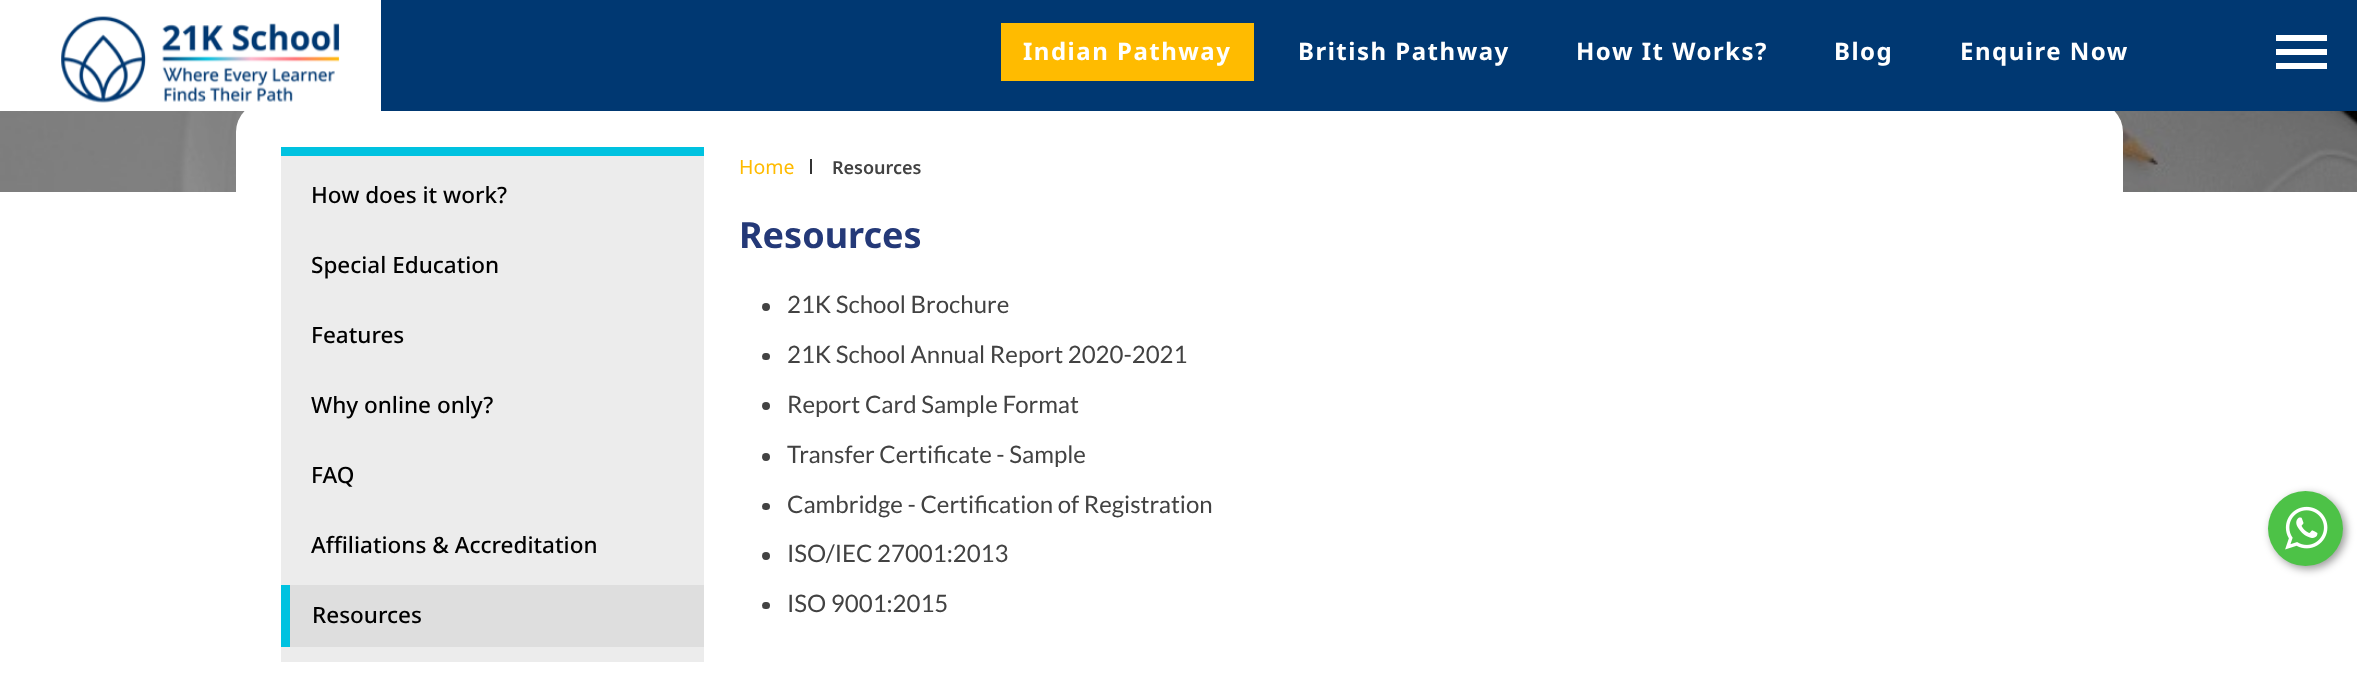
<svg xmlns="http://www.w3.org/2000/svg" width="2357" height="685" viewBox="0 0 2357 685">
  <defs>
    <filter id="blur1" x="-50%" y="-200%" width="200%" height="500%"><feGaussianBlur stdDeviation="4.5"/></filter>
  </defs>
  <rect width="100%" height="100%" fill="#ffffff"/>
  <image x="0" y="111" width="2357" height="81" href="img2.png"/>
  <rect x="236" y="102" width="1887" height="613" rx="30" fill="#ffffff"/>
  <rect x="381" y="0" width="1976" height="111" fill="#003872"/>
  <image x="61" y="16" width="279" height="87" href="img1.png"/>
  <rect x="1001" y="23" width="253" height="58" fill="#ffbb00"/>
  <text x="1023" y="60" font-family="Noto Sans" font-size="24" font-weight="bold" letter-spacing="1.5" fill="#ffffff">Indian Pathway</text>
  <text x="1298" y="60" font-family="Noto Sans" font-size="24" font-weight="bold" letter-spacing="1.5" fill="#ffffff">British Pathway</text>
  <text x="1576" y="60" font-family="Noto Sans" font-size="24" font-weight="bold" letter-spacing="1.5" fill="#ffffff">How It Works?</text>
  <text x="1834" y="60" font-family="Noto Sans" font-size="24" font-weight="bold" letter-spacing="1.5" fill="#ffffff">Blog</text>
  <text x="1960" y="60" font-family="Noto Sans" font-size="24" font-weight="bold" letter-spacing="1.5" fill="#ffffff">Enquire Now</text>
  <path d="M2276 69H2327V63H2276ZM2276 55H2327V49H2276ZM2276 35V41H2327V35Z" fill="#ffffff"/>
  <rect x="281" y="156" width="423" height="506" fill="#ececec"/>
  <rect x="281" y="147" width="423" height="9" fill="#00c2e0"/>
  <text x="311" y="203" font-family="Noto Sans" font-size="22.5" font-weight="500" fill="#000000">How does it work?</text>
  <text x="311" y="273" font-family="Noto Sans" font-size="22.5" font-weight="500" fill="#000000">Special Education</text>
  <text x="311" y="343" font-family="Noto Sans" font-size="22.5" font-weight="500" fill="#000000">Features</text>
  <text x="311" y="413" font-family="Noto Sans" font-size="22.5" font-weight="500" fill="#000000">Why online only?</text>
  <text x="311" y="483" font-family="Noto Sans" font-size="22.5" font-weight="500" fill="#000000">FAQ</text>
  <text x="311" y="553" font-family="Noto Sans" font-size="22.5" font-weight="500" fill="#000000">Affiliations &amp; Accreditation</text>
  <rect x="290" y="585" width="414" height="62" fill="#dedede"/>
  <rect x="281" y="585" width="9" height="62" fill="#00c2e0"/>
  <text x="312" y="623" font-family="Noto Sans" font-size="22.5" font-weight="500" fill="#000000">Resources</text>
  <text x="739" y="174" font-family="Noto Sans" font-size="19.5" fill="#ffbb00">Home</text>
  <rect x="810" y="159" width="2" height="15" fill="#333333"/>
  <text x="832" y="174" font-family="Noto Sans" font-size="18" font-weight="600" fill="#424242">Resources</text>
  <text x="739" y="248" font-family="Noto Sans" font-size="36" font-weight="bold" fill="#243978">Resources</text>
  <circle cx="766" cy="307" r="4" fill="#424242"/>
  <text x="787" y="313" font-family="Lato" font-size="24" fill="#424242">21K School Brochure</text>
  <rect x="762" y="353" width="8" height="7" rx="3.5" fill="#424242"/>
  <text x="787" y="363" font-family="Lato" font-size="24" fill="#424242">21K School Annual Report 2020-2021</text>
  <circle cx="766" cy="406" r="4" fill="#424242"/>
  <text x="787" y="413" font-family="Lato" font-size="24" fill="#424242">Report Card Sample Format</text>
  <circle cx="766" cy="457" r="4" fill="#424242"/>
  <text x="787" y="463" font-family="Lato" font-size="24" fill="#424242">Transfer Certificate - Sample</text>
  <rect x="762" y="503" width="8" height="7" rx="3.5" fill="#424242"/>
  <text x="787" y="513" font-family="Lato" font-size="24" fill="#424242">Cambridge - Certification of Registration</text>
  <circle cx="766" cy="556" r="4" fill="#424242"/>
  <text x="787" y="562" font-family="Lato" font-size="24" fill="#424242">ISO/IEC 27001:2013</text>
  <rect x="762" y="602" width="8" height="7" rx="3.5" fill="#424242"/>
  <text x="787" y="612" font-family="Lato" font-size="24" fill="#424242">ISO 9001:2015</text>
  <rect x="2271" y="494" width="75" height="75" rx="37.5" fill="#000000" fill-opacity="0.4" filter="url(#blur1)"/>
  <circle cx="2305.5" cy="528.5" r="37.5" fill="#4dc247"/>
  <image x="2285" y="506" width="43" height="44" href="img3.png"/>
</svg>
